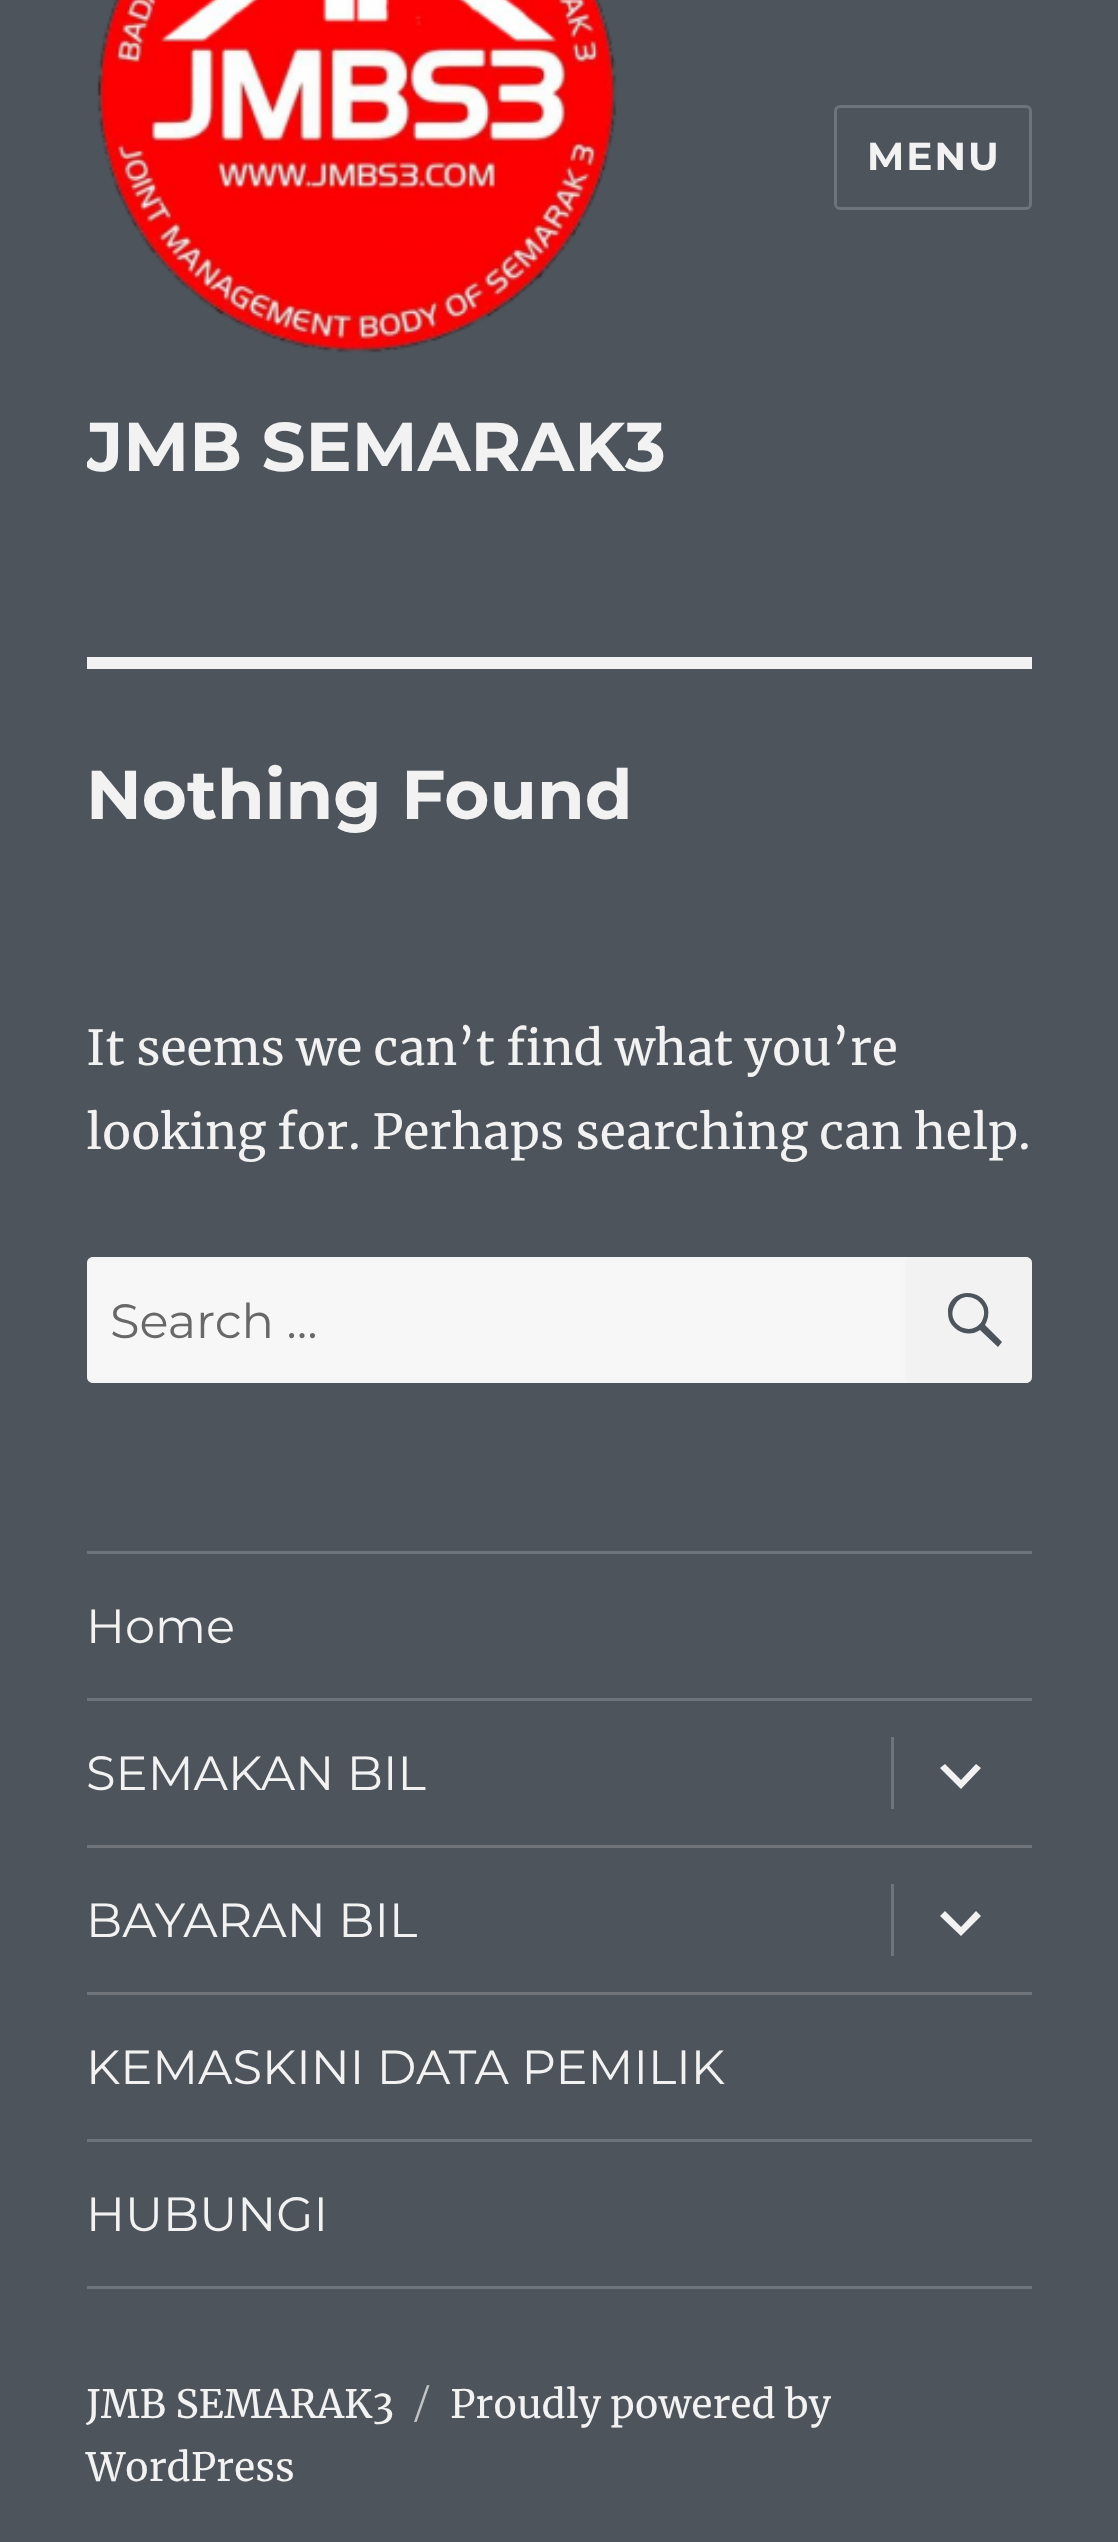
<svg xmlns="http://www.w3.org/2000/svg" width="1118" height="2542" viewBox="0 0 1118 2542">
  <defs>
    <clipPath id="clip1"><rect x="87" y="0" width="579" height="489"/></clipPath>
  </defs>
  <rect width="100%" height="100%" fill="#4d545c"/>
  <rect x="835.5" y="106.5" width="195" height="102" rx="4.5" fill="none" stroke="#6e747a" stroke-width="3"/>
  <text x="867" y="170" font-family="Montserrat" font-size="39" font-weight="100" letter-spacing="2" fill="#f2f2f2">MENU</text>
  <image x="97" y="0" width="520" height="353" href="img1.png"/>
  <g clip-path="url(#clip1)">
    <text x="86" y="471" font-family="Montserrat" font-size="69" font-weight="100" fill="#f2f2f2">JMB SEMARAK3</text>
  </g>
  <rect x="87" y="657" width="945" height="12" fill="#f2f2f2"/>
  <text x="86" y="819" font-family="Montserrat" font-size="69" font-weight="100" fill="#f2f2f2">Nothing Found</text>
  <text x="86" y="1065" font-family="Merriweather" font-size="48" fill="#f2f2f2">It seems we can’t find what you’re</text>
  <text x="86" y="1149" font-family="Merriweather" font-size="48" fill="#f2f2f2">looking for. Perhaps searching can help.</text>
  <path d="M93 1257H906V1383H93C89.5 1383 87 1380.5 87 1377V1263C87 1259.5 89.5 1257 93 1257Z" fill="#f7f7f7"/>
  <path d="M93 1258.5H904.5V1381.5H93C90.5 1381.5 88.5 1379.5 88.5 1377V1263C88.5 1260.5 90.5 1258.5 93 1258.5Z" fill="none" stroke="#f2f2f2" stroke-opacity="0.2" stroke-width="3"/>
  <text x="110" y="1338" font-family="'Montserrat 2'" font-size="48" font-weight="100" fill="#686868">Search …</text>
  <path d="M906 1257H1026C1029.5 1257 1032 1259.5 1032 1263V1377C1032 1380.5 1029.5 1383 1026 1383H906Z" fill="#f2f2f2"/>
  <path d="M1002 1342L998 1347L980 1330C970 1337 956 1333 950 1322C948 1318 948 1314 948 1309C952 1288 982 1288 988 1308C989 1314 988 1320 985 1325ZM955 1305C944 1323 971 1339 982 1321C992 1303 965 1287 955 1305Z" fill="#4d545c"/>
  <rect x="87" y="2286" width="945" height="3" fill="#6e747a"/>
  <rect x="87" y="1551" width="945" height="3" fill="#6e747a"/>
  <text x="86" y="1643" font-family="'Montserrat 2'" font-size="48" font-weight="100" fill="#f2f2f2">Home</text>
  <rect x="87" y="1698" width="945" height="3" fill="#6e747a"/>
  <text x="86" y="1790" font-family="'Montserrat 2'" font-size="48" font-weight="100" fill="#f2f2f2">SEMAKAN BIL</text>
  <rect x="891" y="1737" width="3" height="72" fill="#6e747a"/>
  <path d="M976 1764L981 1768L961 1789L940 1768L945 1764L961 1780Z" fill="#f2f2f2"/>
  <rect x="87" y="1845" width="945" height="3" fill="#6e747a"/>
  <text x="86" y="1937" font-family="'Montserrat 2'" font-size="48" font-weight="100" fill="#f2f2f2">BAYARAN BIL</text>
  <rect x="891" y="1884" width="3" height="72" fill="#6e747a"/>
  <path d="M976 1911L981 1916L961 1936L940 1916L945 1911L961 1927Z" fill="#f2f2f2"/>
  <rect x="87" y="1992" width="945" height="3" fill="#6e747a"/>
  <text x="86" y="2084" font-family="'Montserrat 2'" font-size="48" font-weight="100" fill="#f2f2f2">KEMASKINI DATA PEMILIK</text>
  <rect x="87" y="2139" width="945" height="3" fill="#6e747a"/>
  <text x="86" y="2231" font-family="'Montserrat 2'" font-size="48" font-weight="100" fill="#f2f2f2">HUBUNGI</text>
  <text x="86" y="2418" font-family="Merriweather" font-size="39" fill="#f2f2f2">JMB SEMARAK3</text>
  <text x="415" y="2418" font-family="'Montserrat 2'" font-size="39" font-weight="100" fill="#c1c3c5">/</text>
  <text x="450" y="2418" font-family="Merriweather" font-size="39" fill="#f2f2f2">Proudly powered by</text>
  <text x="86" y="2481" font-family="Merriweather" font-size="39" fill="#f2f2f2">WordPress</text>
</svg>
